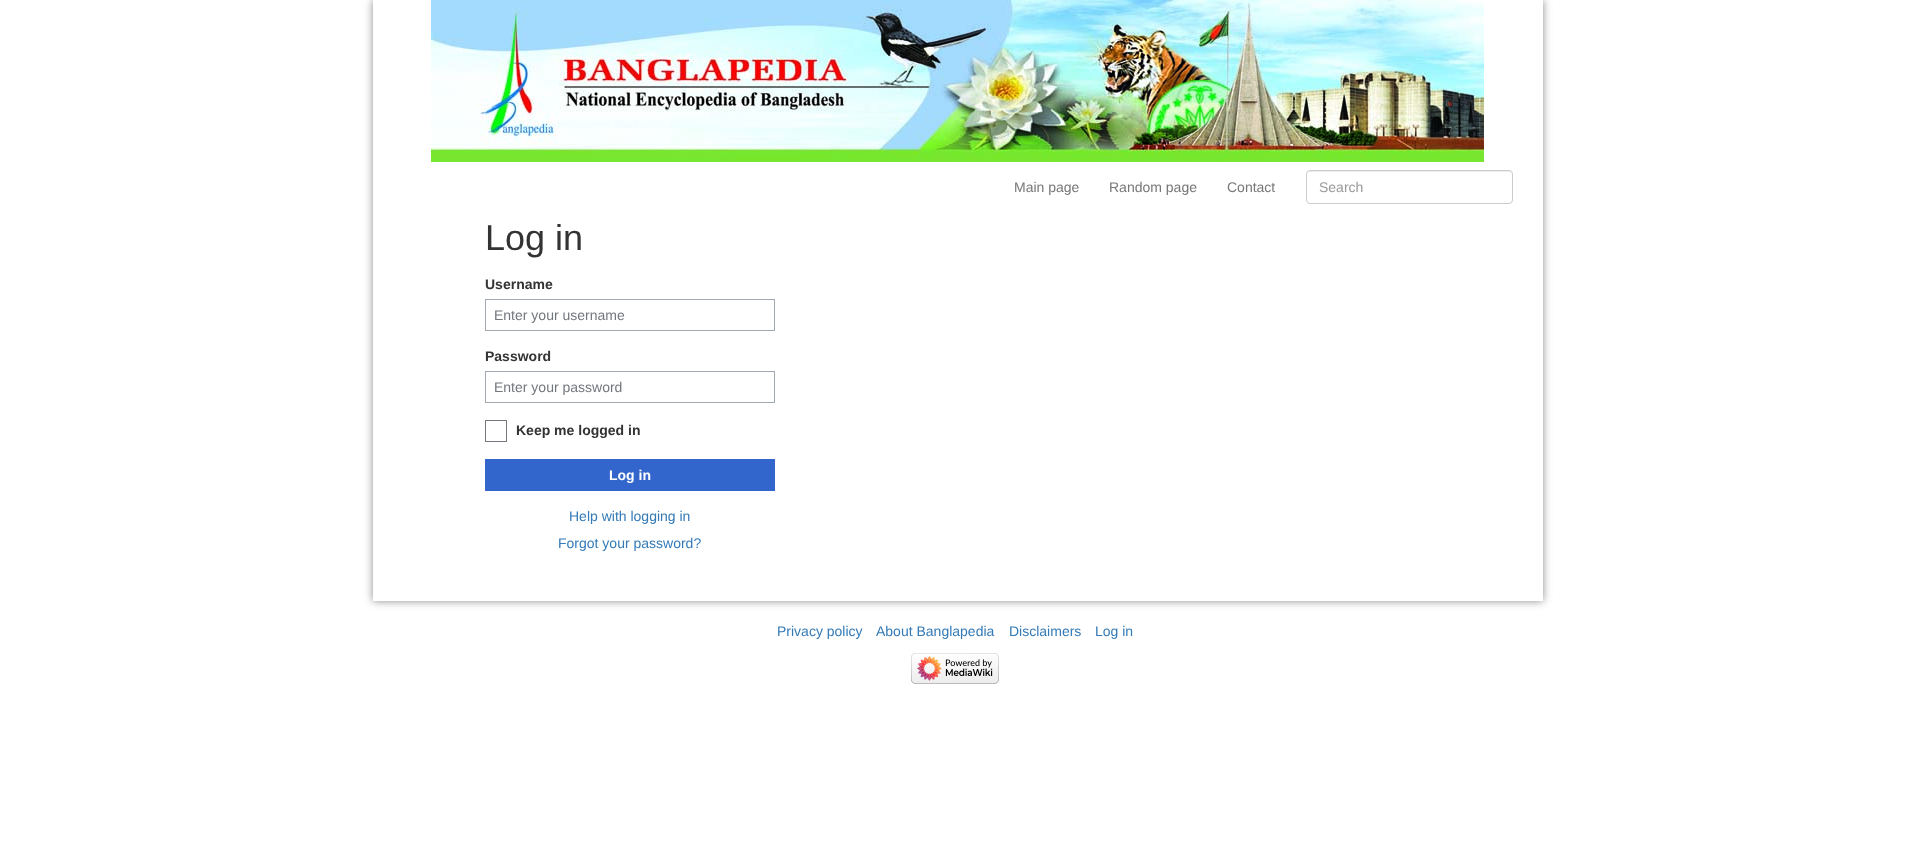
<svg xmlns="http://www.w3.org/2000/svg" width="1915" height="863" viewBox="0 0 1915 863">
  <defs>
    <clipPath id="clip1"><path d="M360 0H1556V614H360ZM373 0H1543V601H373Z" clip-rule="evenodd"/></clipPath>
    <filter id="blur1" x="-50%" y="-200%" width="200%" height="500%"><feGaussianBlur stdDeviation="4"/></filter>
  </defs>
  <rect width="100%" height="100%" fill="#ffffff"/>
  <g clip-path="url(#clip1)">
    <rect x="373" y="0" width="1170" height="601" fill="#888888" filter="url(#blur1)"/>
  </g>
  <image x="431" y="0" width="1053" height="162" href="img1.png"/>
  <text x="1014" y="192" font-family="Liberation Sans" font-size="14" fill="#777777">Main page</text>
  <text x="1109" y="192" font-family="Liberation Sans" font-size="14" fill="#777777">Random page</text>
  <text x="1227" y="192" font-family="Liberation Sans" font-size="14" fill="#777777">Contact</text>
  <path d="M1310 172H1509C1511 172 1512 173 1512 175C1512 173 1511 171 1509 171H1310C1308 171 1307 173 1307 175C1307 173 1308 172 1310 172Z" fill="#ececec"/>
  <rect x="1306.5" y="170.5" width="206" height="33" rx="3.5" fill="none" stroke="#cccccc"/>
  <text x="1319" y="192" font-family="Liberation Sans" font-size="14" fill="#999999">Search</text>
  <text x="485" y="250" font-family="Liberation Sans" font-size="36" fill="#333333">Log in</text>
  <text x="485" y="289" font-family="Liberation Sans" font-size="14" font-weight="bold" fill="#333333">Username</text>
  <rect x="485.5" y="299.5" width="289" height="31" fill="none" stroke="#a2a9b1"/>
  <text x="494" y="320" font-family="Liberation Sans" font-size="14" fill="#72777d">Enter your username</text>
  <text x="485" y="361" font-family="Liberation Sans" font-size="14" font-weight="bold" fill="#333333">Password</text>
  <rect x="485.5" y="371.5" width="289" height="31" fill="none" stroke="#a2a9b1"/>
  <text x="494" y="392" font-family="Liberation Sans" font-size="14" fill="#72777d">Enter your password</text>
  <rect x="485.5" y="420.5" width="21" height="21" fill="none" stroke="#72777d"/>
  <text x="516" y="435" font-family="Liberation Sans" font-size="14" font-weight="bold" fill="#333333">Keep me logged in</text>
  <rect x="485" y="459" width="290" height="32" fill="#3366cc"/>
  <text x="609" y="480" font-family="Liberation Sans" font-size="14" font-weight="bold" fill="#ffffff">Log in</text>
  <text x="569" y="521" font-family="Liberation Sans" font-size="14" fill="#337ab7">Help with logging in</text>
  <text x="558" y="548" font-family="Liberation Sans" font-size="14" fill="#337ab7">Forgot your password?</text>
  <text x="777" y="636" font-family="Liberation Sans" font-size="14" fill="#337ab7">Privacy policy</text>
  <text x="876" y="636" font-family="Liberation Sans" font-size="14" fill="#337ab7">About Banglapedia</text>
  <text x="1009" y="636" font-family="Liberation Sans" font-size="14" fill="#337ab7">Disclaimers</text>
  <text x="1095" y="636" font-family="Liberation Sans" font-size="14" fill="#337ab7">Log in</text>
  <image x="911" y="653" width="88" height="31" href="img2.png"/>
</svg>
